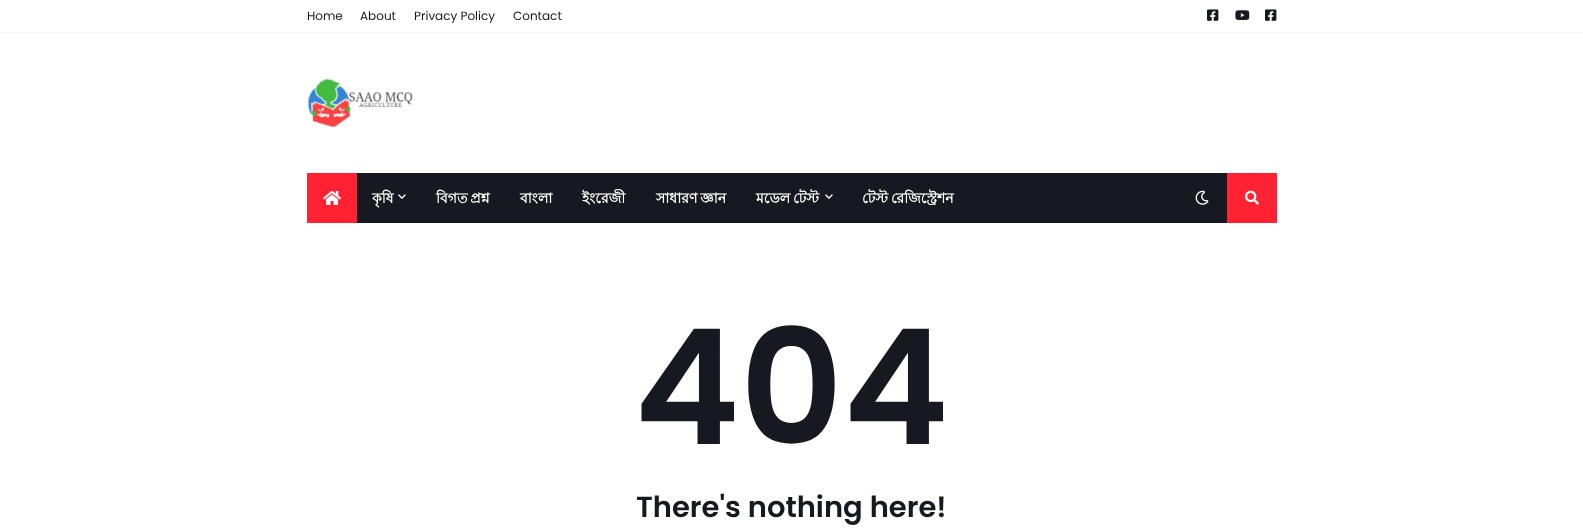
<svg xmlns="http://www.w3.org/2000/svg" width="1583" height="528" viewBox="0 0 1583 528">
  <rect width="100%" height="100%" fill="#ffffff"/>
  <rect x="0" y="32" width="1583" height="1" fill="#f5f5f5"/>
  <text x="307" y="20" font-family="Poppins" font-size="12" fill="#171921">Home</text>
  <text x="360" y="20" font-family="Poppins" font-size="12" fill="#171921">About</text>
  <text x="414" y="20" font-family="Poppins" font-size="12" fill="#171921">Privacy Policy</text>
  <text x="513" y="20" font-family="Poppins" font-size="12" fill="#171921">Contact</text>
  <image x="1207" y="9" width="12" height="12" href="img1.png"/>
  <image x="1235" y="10" width="15" height="10" href="img2.png"/>
  <image x="1265" y="9" width="12" height="12" href="img1.png"/>
  <image x="307" y="78" width="106" height="50" href="img3.png"/>
  <rect x="357" y="173" width="870" height="50" fill="#171921"/>
  <rect x="307" y="173" width="50" height="50" fill="#ff2232"/>
  <image x="323" y="191" width="18" height="14" href="img4.png"/>
  <text x="372" y="203" font-family="Lohit Bengali" font-size="14" font-weight="bold" fill="#ffffff">কৃষি</text>
  <image x="398" y="194" width="8" height="5" href="img5.png"/>
  <text x="436" y="203" word-spacing="-1" font-family="Lohit Bengali" font-size="14" font-weight="bold" fill="#ffffff">বিগত প্রশ্ন</text>
  <text x="520" y="203" font-family="Lohit Bengali" font-size="14" font-weight="bold" fill="#ffffff">বাংলা</text>
  <text x="582" y="203" font-family="Lohit Bengali" font-size="14" font-weight="bold" fill="#ffffff">ইংরেজী</text>
  <text x="656" y="203" word-spacing="-1" font-family="Lohit Bengali" font-size="14" font-weight="bold" fill="#ffffff">সাধারণ জ্ঞান</text>
  <text x="756" y="203" word-spacing="-1" font-family="Lohit Bengali" font-size="14" font-weight="bold" fill="#ffffff">মডেল টেস্ট</text>
  <image x="825" y="194" width="8" height="5" href="img5.png"/>
  <text x="862" y="203" word-spacing="-1" font-family="Lohit Bengali" font-size="14" font-weight="bold" fill="#ffffff">টেস্ট রেজিস্ট্রেশন</text>
  <image x="1195" y="190" width="14" height="15" href="img6.png"/>
  <rect x="1227" y="173" width="50" height="50" fill="#ff2232"/>
  <image x="1245" y="190" width="14" height="15" href="img7.png"/>
  <text x="634" y="444" font-family="Poppins" font-size="160" font-weight="600" fill="#171921">404</text>
  <text x="636" y="517" font-family="Poppins" font-size="29" font-weight="600" fill="#171921">There's nothing here!</text>
</svg>
